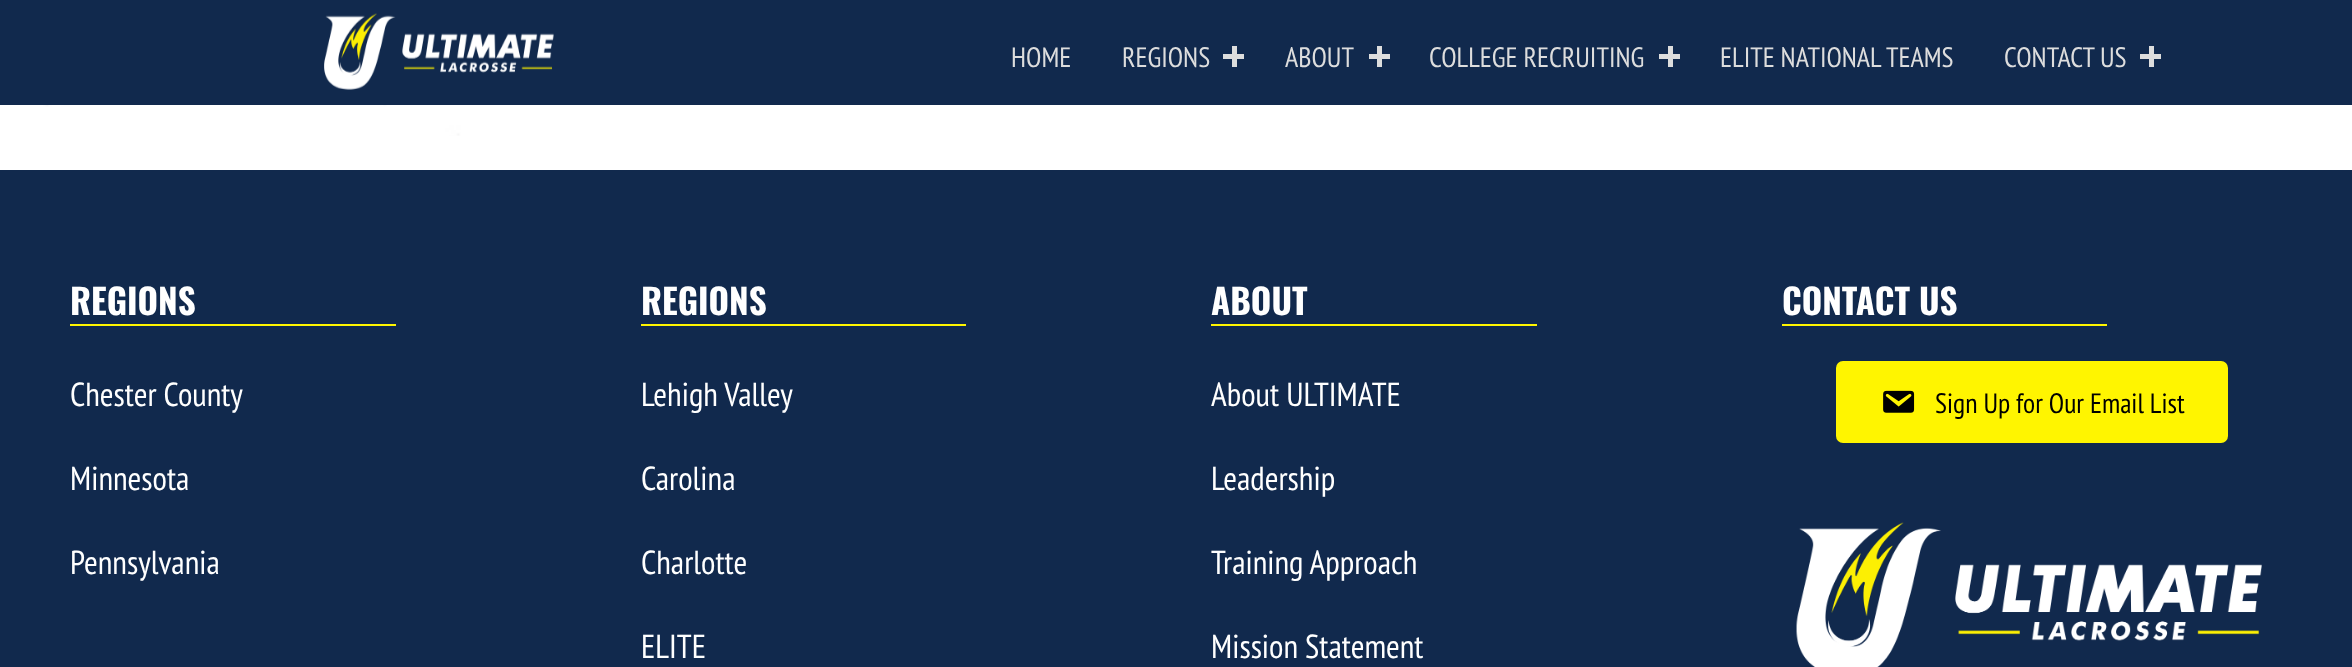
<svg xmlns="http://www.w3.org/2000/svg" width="2352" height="667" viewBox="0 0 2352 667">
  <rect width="100%" height="100%" fill="#ffffff"/>
  <rect x="0" y="0" width="2352" height="105" fill="#11294d"/>
  <image x="324" y="13" width="230" height="77" href="img1.png"/>
  <text x="1011" y="67" font-family="PT Sans Narrow" font-size="28" fill="#dddddd">HOME</text>
  <text x="1122" y="67" font-family="PT Sans Narrow" font-size="28" fill="#dddddd">REGIONS</text>
  <rect x="1223" y="54" width="21" height="5" fill="#dddddd"/>
  <rect x="1232" y="46" width="5" height="21" fill="#dddddd"/>
  <text x="1285" y="67" font-family="PT Sans Narrow" font-size="28" fill="#dddddd">ABOUT</text>
  <rect x="1369" y="54" width="21" height="5" fill="#dddddd"/>
  <rect x="1377" y="46" width="5" height="21" fill="#dddddd"/>
  <text x="1429" y="67" font-family="PT Sans Narrow" font-size="28" fill="#dddddd">COLLEGE RECRUITING</text>
  <rect x="1659" y="54" width="21" height="5" fill="#dddddd"/>
  <rect x="1668" y="46" width="5" height="21" fill="#dddddd"/>
  <text x="1720" y="67" font-family="PT Sans Narrow" font-size="28" fill="#dddddd">ELITE NATIONAL TEAMS</text>
  <text x="2004" y="67" font-family="PT Sans Narrow" font-size="28" fill="#dddddd">CONTACT US</text>
  <rect x="2140" y="54" width="21" height="5" fill="#dddddd"/>
  <rect x="2149" y="46" width="5" height="21" fill="#dddddd"/>
  <image x="39" y="105" width="2308" height="31" href="img2.png"/>
  <rect x="0" y="170" width="2352" height="497" fill="#11294d"/>
  <text x="70" y="315" font-family="Oswald" font-size="35" font-weight="bold" fill="#ffffff">REGIONS</text>
  <rect x="70" y="324" width="326" height="2" fill="#fff500"/>
  <text x="70" y="406" font-family="PT Sans Narrow" font-size="33.25" fill="#ffffff">Chester County</text>
  <text x="70" y="490" font-family="PT Sans Narrow" font-size="33.25" fill="#ffffff">Minnesota</text>
  <text x="70" y="574" font-family="PT Sans Narrow" font-size="33.25" fill="#ffffff">Pennsylvania</text>
  <text x="641" y="315" font-family="Oswald" font-size="35" font-weight="bold" fill="#ffffff">REGIONS</text>
  <rect x="641" y="324" width="325" height="2" fill="#fff500"/>
  <text x="641" y="406" font-family="PT Sans Narrow" font-size="33.25" fill="#ffffff">Lehigh Valley</text>
  <text x="641" y="490" font-family="PT Sans Narrow" font-size="33.25" fill="#ffffff">Carolina</text>
  <text x="641" y="574" font-family="PT Sans Narrow" font-size="33.25" fill="#ffffff">Charlotte</text>
  <text x="641" y="658" font-family="PT Sans Narrow" font-size="33.25" fill="#ffffff">ELITE</text>
  <text x="1211" y="315" font-family="Oswald" font-size="35" font-weight="bold" fill="#ffffff">ABOUT</text>
  <rect x="1211" y="324" width="326" height="2" fill="#fff500"/>
  <text x="1211" y="406" font-family="PT Sans Narrow" font-size="33.25" fill="#ffffff">About ULTIMATE</text>
  <text x="1211" y="490" font-family="PT Sans Narrow" font-size="33.25" fill="#ffffff">Leadership</text>
  <text x="1211" y="574" font-family="PT Sans Narrow" font-size="33.25" fill="#ffffff">Training Approach</text>
  <text x="1211" y="658" font-family="PT Sans Narrow" font-size="33.25" fill="#ffffff">Mission Statement</text>
  <text x="1782" y="315" font-family="Oswald" font-size="35" font-weight="bold" fill="#ffffff">CONTACT US</text>
  <rect x="1782" y="324" width="325" height="2" fill="#fff500"/>
  <rect x="1837" y="362" width="390" height="80" rx="6" fill="#fff500" stroke="#fff500" stroke-width="2"/>
  <image x="1883" y="390" width="32" height="23" href="img3.png"/>
  <text x="1935" y="413" font-family="PT Sans Narrow" font-size="28" fill="#000000">Sign Up for Our Email List</text>
  <image x="1796" y="522" width="466" height="145" href="img4.png"/>
</svg>
